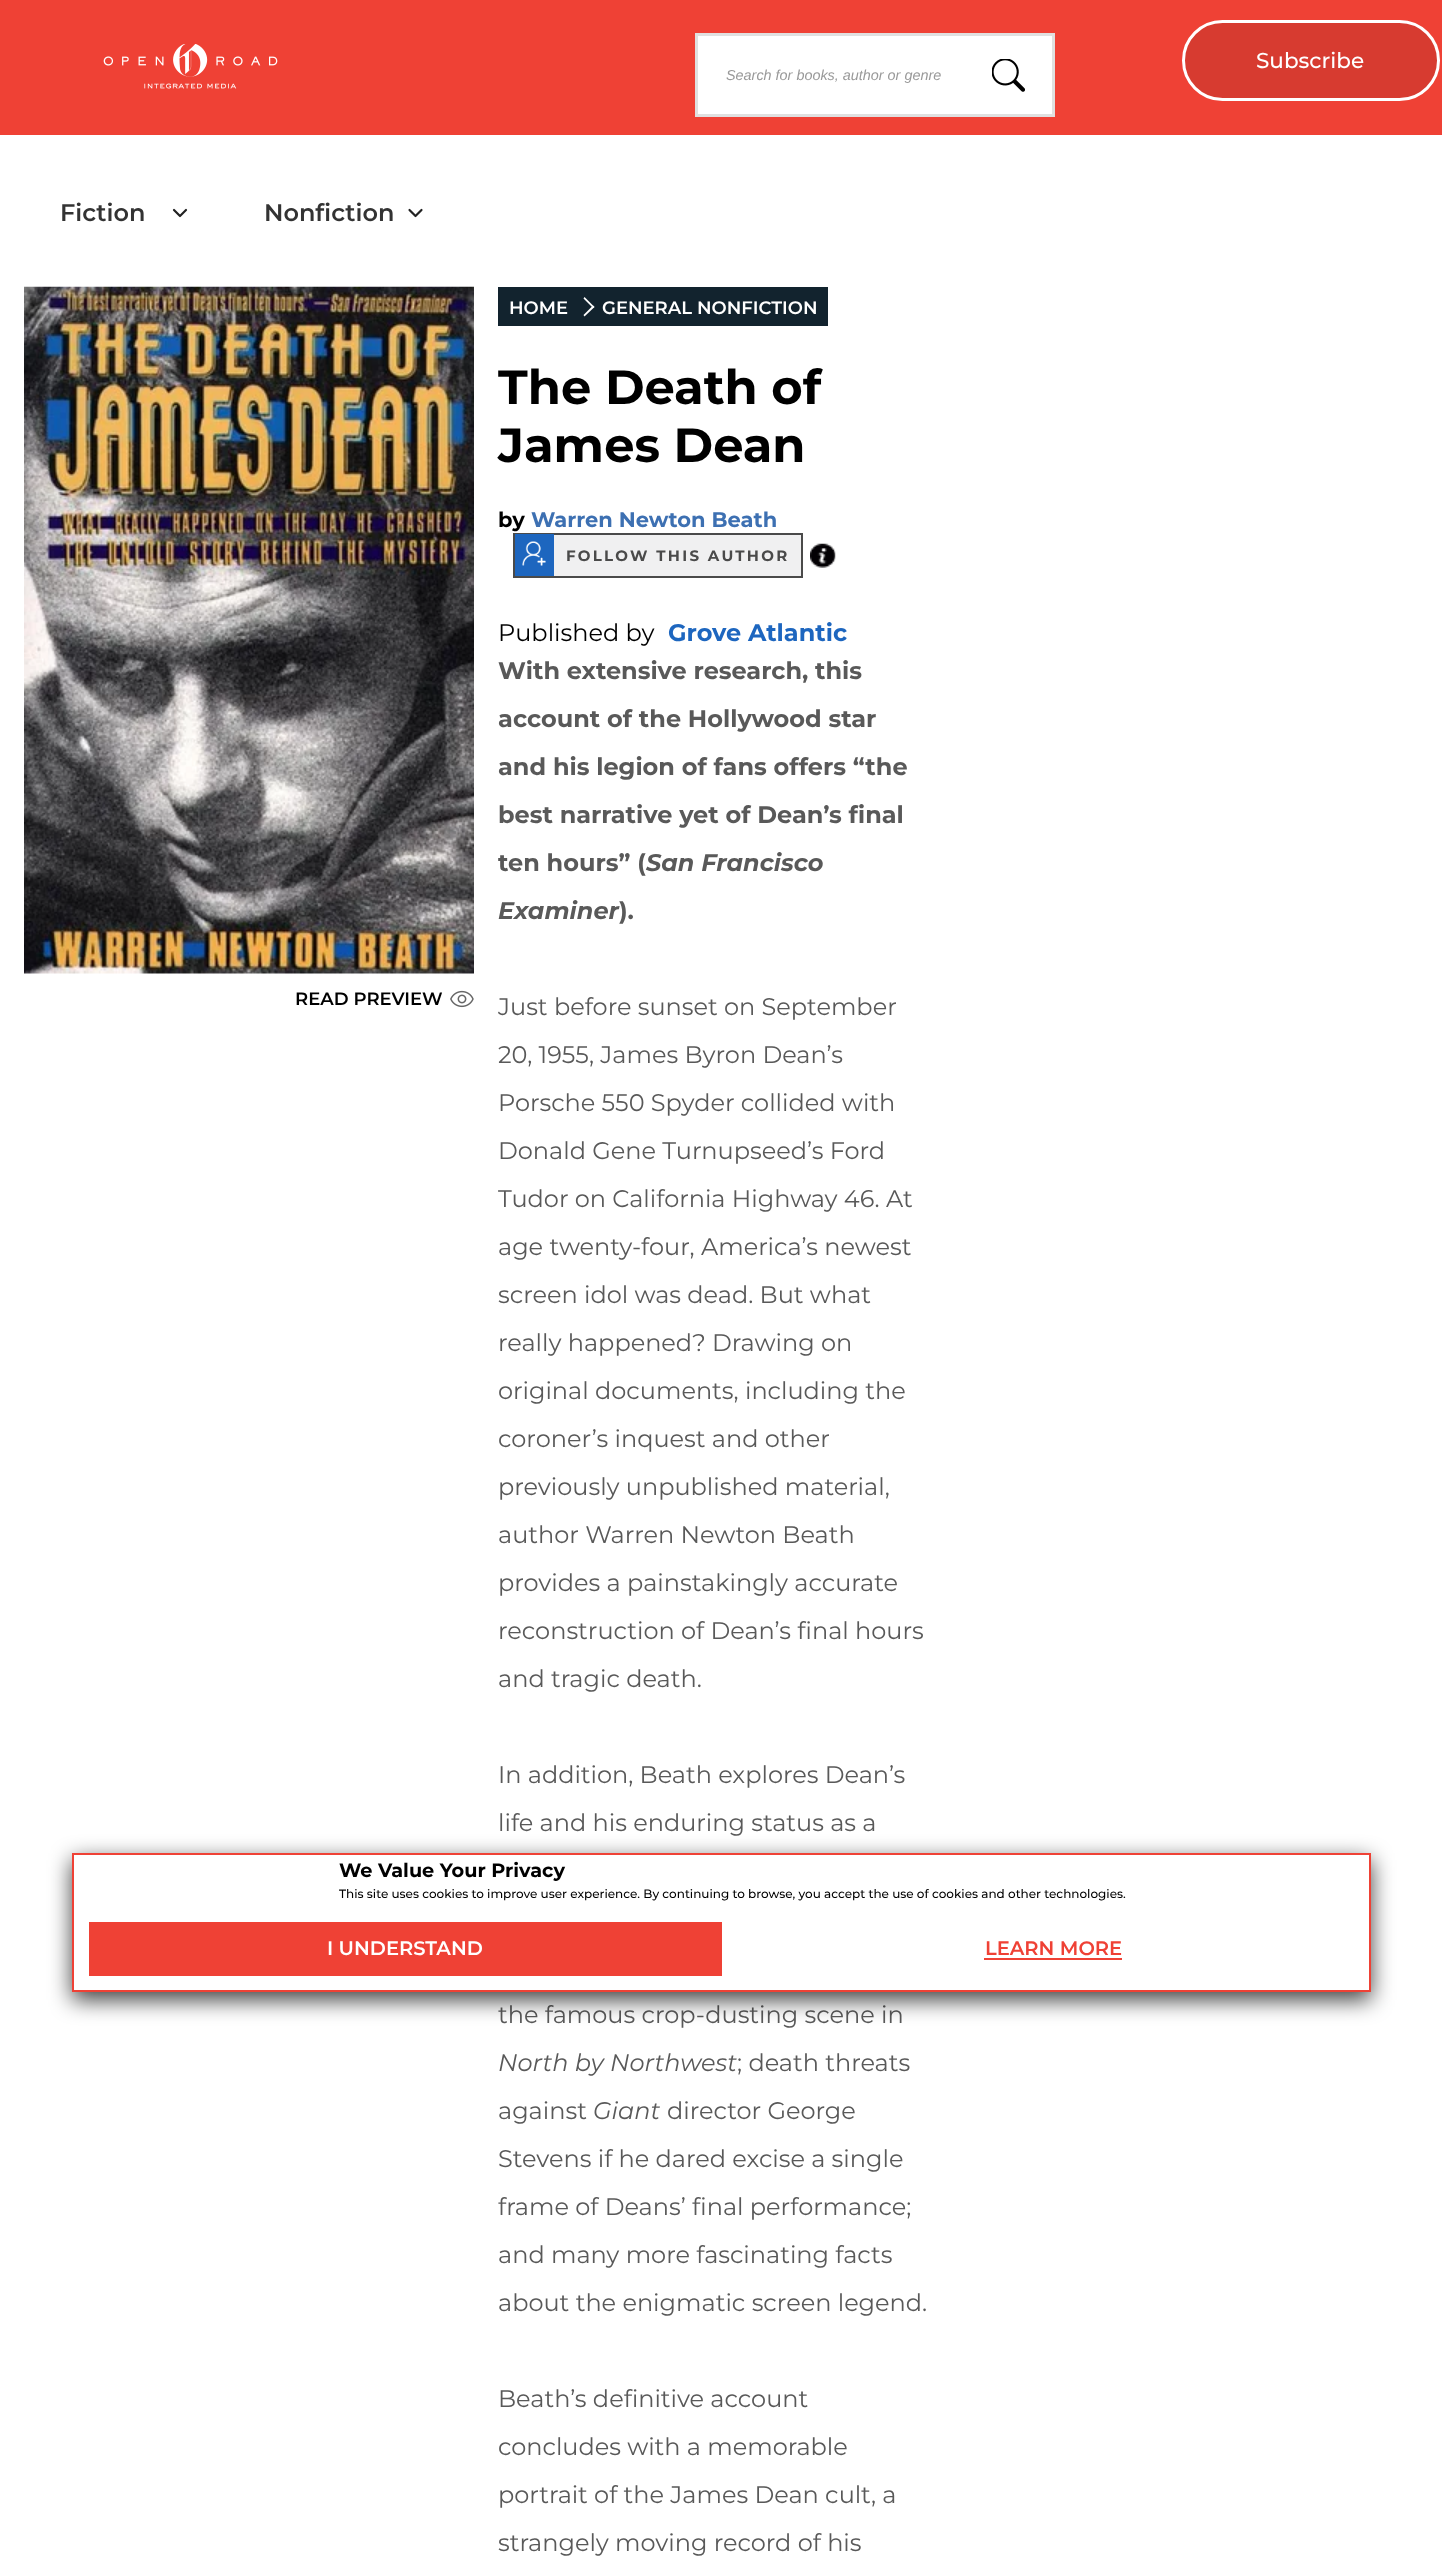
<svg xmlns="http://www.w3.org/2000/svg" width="1442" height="2562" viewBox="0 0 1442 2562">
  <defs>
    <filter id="blur1" x="-50%" y="-200%" width="200%" height="500%"><feGaussianBlur stdDeviation="11"/></filter>
  </defs>
  <rect width="100%" height="100%" fill="#ffffff"/>
  <rect x="0" y="0" width="1442" height="135" fill="#ef4135"/>
  <image x="103" y="44" width="175" height="45" href="img1.png"/>
  <rect x="1183.5" y="21.5" width="255" height="78" rx="39" fill="#d73b30" stroke="#ffffff" stroke-width="3"/>
  <text x="1256" y="68" font-family="Montserrat" font-size="21.5" font-weight="500" fill="#ffffff">Subscribe</text>
  <rect x="696.5" y="34.5" width="357" height="81" fill="#ffffff" stroke="#e0e0e0" stroke-width="3"/>
  <text x="726" y="80" font-family="Liberation Sans" font-size="14.4" font-style="italic" fill="#999999">Search for books, author or genre</text>
  <image x="992" y="59" width="33" height="33" href="img2.png"/>
  <text x="60" y="221" font-family="Montserrat" font-size="24" font-weight="600" fill="#333333">Fiction</text>
  <path d="M174 210L180 216L186 210" fill="none" stroke="#222222" stroke-width="2.2" stroke-linecap="round" stroke-linejoin="round"/>
  <text x="264" y="221" font-family="Montserrat" font-size="24" font-weight="600" fill="#333333">Nonfiction</text>
  <path d="M409.5 210L415.5 216L421.5 210" fill="none" stroke="#222222" stroke-width="2.2" stroke-linecap="round" stroke-linejoin="round"/>
  <image x="24" y="286" width="450" height="688" href="img3.png"/>
  <text x="295" y="1005" font-family="Montserrat" font-size="18" font-weight="600" fill="#000000">READ PREVIEW</text>
  <image x="450" y="990" width="24" height="18" href="img4.png"/>
  <rect x="498" y="287" width="330" height="39" fill="#12232e"/>
  <text x="509" y="314" font-family="Montserrat" font-size="18" font-weight="600" fill="#ffffff">HOME</text>
  <path d="M583.5 298.5L584.5 297L594.5 307L593 308Z" fill="#ffffff"/>
  <path d="M583.5 315L593 305.5L594.5 307L584.5 316.5Z" fill="#ffffff"/>
  <text x="602" y="314" font-family="Montserrat" font-size="18" font-weight="600" fill="#ffffff">GENERAL NONFICTION</text>
  <text x="498" y="404" font-family="Montserrat" font-size="48" font-weight="bold" fill="#000000">The Death of</text>
  <text x="498" y="462" font-family="Montserrat" font-size="48" font-weight="bold" fill="#000000">James Dean</text>
  <text x="498" y="527" font-family="Montserrat" font-size="21" font-weight="bold" fill="#000000">by</text>
  <text x="531" y="527" font-family="Montserrat" font-size="21" font-weight="bold" fill="#3d70b2">Warren Newton Beath</text>
  <rect x="554" y="535" width="247" height="41" fill="#f0f0f1"/>
  <rect x="514" y="534" width="288" height="43" fill="none" stroke="#4a4a4a" stroke-width="2"/>
  <rect x="515" y="534" width="39" height="42" fill="#1d66bf"/>
  <image x="522" y="541" width="24" height="25" href="img5.png"/>
  <text x="566" y="561" font-family="Montserrat" font-size="15" font-weight="bold" letter-spacing="2.3" fill="#4a4a4a">FOLLOW THIS AUTHOR</text>
  <image x="810" y="543" width="26" height="25" href="img6.png"/>
  <text x="498" y="641" font-family="Montserrat" font-size="24" fill="#000000">Published by</text>
  <text x="668" y="641" font-family="Montserrat" font-size="24" font-weight="bold" fill="#1d66bf">Grove Atlantic</text>
  <text x="498" y="679" font-family="Montserrat" font-size="24" font-weight="bold" fill="#595959">With extensive research, this</text>
  <text x="498" y="727" font-family="Montserrat" font-size="24" font-weight="bold" fill="#595959">account of the Hollywood star</text>
  <text x="498" y="775" font-family="Montserrat" font-size="24" font-weight="bold" fill="#595959">and his legion of fans offers “the</text>
  <text x="498" y="823" font-family="Montserrat" font-size="24" font-weight="bold" fill="#595959">best narrative yet of Dean’s final</text>
  <text x="498" y="871" font-family="Montserrat" font-size="24" font-weight="bold" fill="#595959">ten hours” (</text>
  <text x="646" y="871" font-family="Montserrat" font-size="24" font-weight="bold" font-style="italic" fill="#595959">San Francisco</text>
  <text x="498" y="919" font-family="Montserrat" font-size="24" font-weight="bold" font-style="italic" fill="#595959">Examiner</text>
  <text x="619" y="919" font-family="Montserrat" font-size="24" font-weight="bold" fill="#595959">).</text>
  <text x="498" y="1015" font-family="Montserrat" font-size="24" fill="#595959">Just before sunset on September</text>
  <text x="498" y="1063" font-family="Montserrat" font-size="24" fill="#595959">20, 1955, James Byron Dean’s</text>
  <text x="498" y="1111" font-family="Montserrat" font-size="24" fill="#595959">Porsche 550 Spyder collided with</text>
  <text x="498" y="1159" font-family="Montserrat" font-size="24" fill="#595959">Donald Gene Turnupseed’s Ford</text>
  <text x="498" y="1207" font-family="Montserrat" font-size="24" fill="#595959">Tudor on California Highway 46. At</text>
  <text x="498" y="1255" font-family="Montserrat" font-size="24" fill="#595959">age twenty-four, America’s newest</text>
  <text x="498" y="1303" font-family="Montserrat" font-size="24" fill="#595959">screen idol was dead. But what</text>
  <text x="498" y="1351" font-family="Montserrat" font-size="24" fill="#595959">really happened? Drawing on</text>
  <text x="498" y="1399" font-family="Montserrat" font-size="24" fill="#595959">original documents, including the</text>
  <text x="498" y="1447" font-family="Montserrat" font-size="24" fill="#595959">coroner’s inquest and other</text>
  <text x="498" y="1495" font-family="Montserrat" font-size="24" fill="#595959">previously unpublished material,</text>
  <text x="498" y="1543" font-family="Montserrat" font-size="24" fill="#595959">author Warren Newton Beath</text>
  <text x="498" y="1591" font-family="Montserrat" font-size="24" fill="#595959">provides a painstakingly accurate</text>
  <text x="498" y="1639" font-family="Montserrat" font-size="24" fill="#595959">reconstruction of Dean’s final hours</text>
  <text x="498" y="1687" font-family="Montserrat" font-size="24" fill="#595959">and tragic death.</text>
  <text x="498" y="1783" font-family="Montserrat" font-size="24" fill="#595959">In addition, Beath explores Dean’s</text>
  <text x="498" y="1831" font-family="Montserrat" font-size="24" fill="#595959">life and his enduring status as a</text>
  <text x="498" y="2023" font-family="Montserrat" font-size="24" fill="#595959">the famous crop-dusting scene in</text>
  <text x="498" y="2071" font-family="Montserrat" font-size="24" font-style="italic" fill="#595959">North by Northwest</text>
  <text x="737" y="2071" font-family="Montserrat" font-size="24" fill="#595959">; death threats</text>
  <text x="498" y="2119" font-family="Montserrat" font-size="24" fill="#595959">against</text>
  <text x="593" y="2119" font-family="Montserrat" font-size="24" font-style="italic" fill="#595959">Giant</text>
  <text x="667" y="2119" font-family="Montserrat" font-size="24" fill="#595959">director George</text>
  <text x="498" y="2167" font-family="Montserrat" font-size="24" fill="#595959">Stevens if he dared excise a single</text>
  <text x="498" y="2215" font-family="Montserrat" font-size="24" fill="#595959">frame of Deans’ final performance;</text>
  <text x="498" y="2263" font-family="Montserrat" font-size="24" fill="#595959">and many more fascinating facts</text>
  <text x="498" y="2311" font-family="Montserrat" font-size="24" fill="#595959">about the enigmatic screen legend.</text>
  <text x="498" y="2407" font-family="Montserrat" font-size="24" fill="#595959">Beath’s definitive account</text>
  <text x="498" y="2455" font-family="Montserrat" font-size="24" fill="#595959">concludes with a memorable</text>
  <text x="498" y="2503" font-family="Montserrat" font-size="24" fill="#595959">portrait of the James Dean cult, a</text>
  <text x="498" y="2551" font-family="Montserrat" font-size="24" fill="#595959">strangely moving record of his</text>
  <rect x="72" y="1860" width="1299" height="140" fill="#000000" fill-opacity="0.75" filter="url(#blur1)"/>
  <rect x="73" y="1854" width="1297" height="137" fill="#ffffff" stroke="#ef4135" stroke-width="2"/>
  <text x="339" y="1877" font-family="Montserrat" font-size="19.25" font-weight="bold" fill="#000000">We Value Your Privacy</text>
  <text x="339" y="1898" font-family="Montserrat" font-size="12" font-weight="500" fill="#000000">This site uses cookies to improve user experience. By continuing to browse, you accept the use of cookies and other technologies.</text>
  <rect x="89" y="1922" width="633" height="54" fill="#ef4135"/>
  <text x="327" y="1955" font-family="Montserrat" font-size="19.5" font-weight="600" fill="#ffffff">I UNDERSTAND</text>
  <text x="985" y="1955" font-family="Montserrat" font-size="19.5" font-weight="600" fill="#ef4135">LEARN MORE</text>
  <rect x="984" y="1958" width="138" height="2" fill="#ef4135"/>
</svg>
